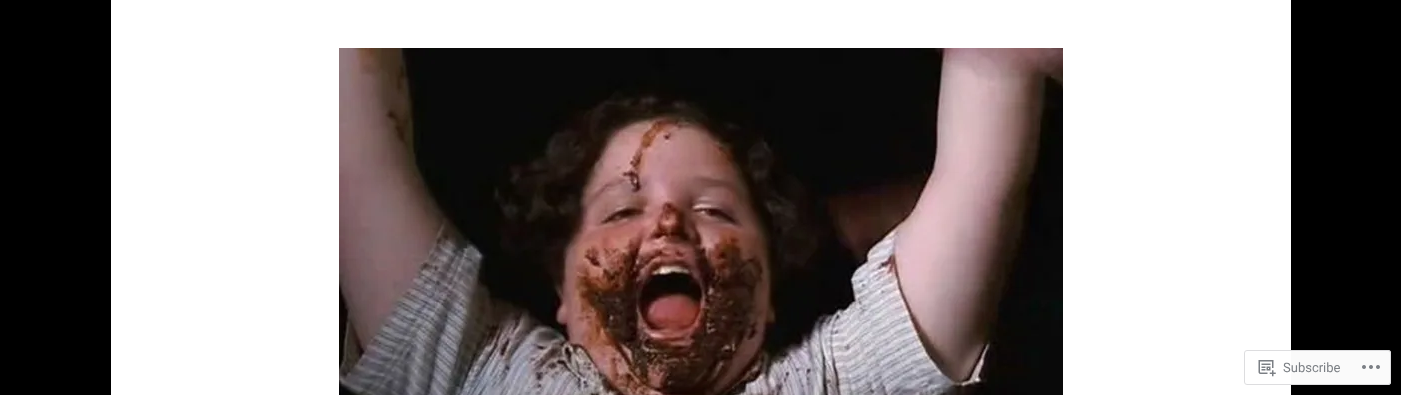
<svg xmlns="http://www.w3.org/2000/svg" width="1401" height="395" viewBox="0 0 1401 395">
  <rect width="100%" height="100%" fill="#000000"/>
  <rect x="111" y="0" width="1180" height="395" fill="#ffffff"/>
  <image x="339" y="48" width="724" height="347" href="img1.png"/>
  <rect x="1244" y="350" width="147" height="35" rx="3" fill="#ffffff" fill-opacity="0.98"/>
  <rect x="1244.5" y="350.5" width="146" height="34" rx="2.5" fill="none" stroke="#dcdcde" stroke-opacity="0.98"/>
  <image x="1258" y="360" width="18" height="17" href="img2.png"/>
  <text x="1283" y="372" font-family="Roboto" font-size="13" fill="#7b7f84">Subscribe</text>
  <image x="1362" y="365" width="18" height="4" href="img3.png"/>
</svg>
